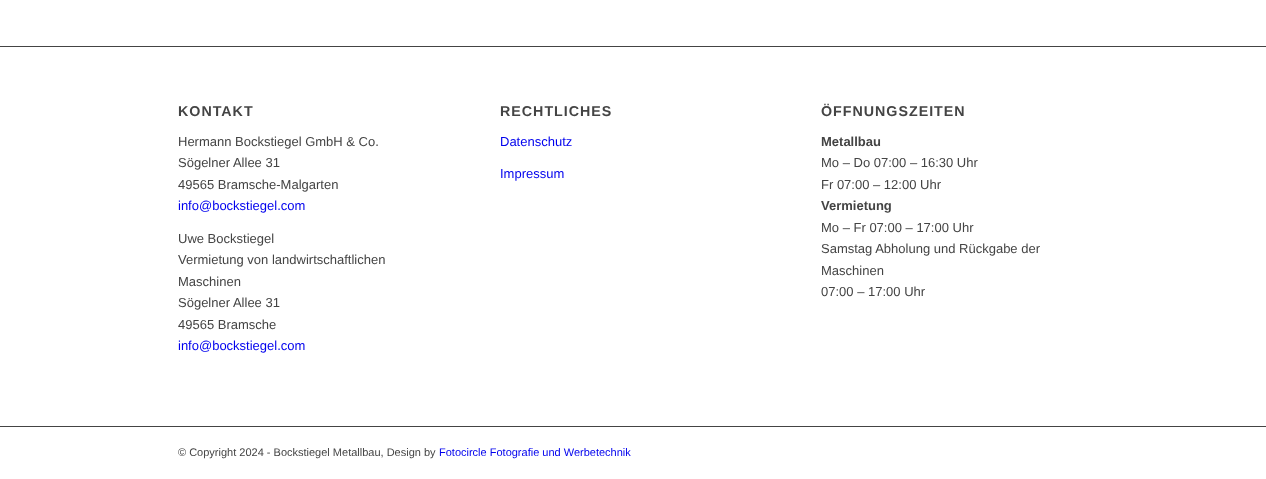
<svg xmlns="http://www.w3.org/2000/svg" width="1266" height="479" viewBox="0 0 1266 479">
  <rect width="100%" height="100%" fill="#ffffff"/>
  <rect x="0" y="46" width="1266" height="1" fill="#444444"/>
  <text x="178" y="116" font-family="Liberation Sans" font-size="14.25" font-weight="bold" letter-spacing="1" fill="#444444">KONTAKT</text>
  <text x="178" y="146" font-family="Liberation Sans" font-size="13" fill="#444444">Hermann Bockstiegel GmbH &amp; Co.</text>
  <text x="178" y="167" font-family="Liberation Sans" font-size="13" fill="#444444">Sögelner Allee 31</text>
  <text x="178" y="189" font-family="Liberation Sans" font-size="13" fill="#444444">49565 Bramsche-Malgarten</text>
  <text x="178" y="210" font-family="Liberation Sans" font-size="13" fill="#0000ee">info@bockstiegel.com</text>
  <text x="178" y="243" font-family="Liberation Sans" font-size="13" fill="#444444">Uwe Bockstiegel</text>
  <text x="178" y="264" font-family="Liberation Sans" font-size="13" fill="#444444">Vermietung von landwirtschaftlichen</text>
  <text x="178" y="286" font-family="Liberation Sans" font-size="13" fill="#444444">Maschinen</text>
  <text x="178" y="307" font-family="Liberation Sans" font-size="13" fill="#444444">Sögelner Allee 31</text>
  <text x="178" y="329" font-family="Liberation Sans" font-size="13" fill="#444444">49565 Bramsche</text>
  <text x="178" y="350" font-family="Liberation Sans" font-size="13" fill="#0000ee">info@bockstiegel.com</text>
  <text x="500" y="116" font-family="Liberation Sans" font-size="14.25" font-weight="bold" letter-spacing="1" fill="#444444">RECHTLICHES</text>
  <text x="500" y="146" font-family="Liberation Sans" font-size="13" fill="#0000ee">Datenschutz</text>
  <text x="500" y="178" font-family="Liberation Sans" font-size="13" fill="#0000ee">Impressum</text>
  <text x="821" y="116" font-family="Liberation Sans" font-size="14.25" font-weight="bold" letter-spacing="1" fill="#444444">ÖFFNUNGSZEITEN</text>
  <text x="821" y="146" font-family="Liberation Sans" font-size="13" font-weight="bold" fill="#444444">Metallbau</text>
  <text x="821" y="167" font-family="Liberation Sans" font-size="13" fill="#444444">Mo – Do 07:00 – 16:30 Uhr</text>
  <text x="821" y="189" font-family="Liberation Sans" font-size="13" fill="#444444">Fr 07:00 – 12:00 Uhr</text>
  <text x="821" y="210" font-family="Liberation Sans" font-size="13" font-weight="bold" fill="#444444">Vermietung</text>
  <text x="821" y="232" font-family="Liberation Sans" font-size="13" fill="#444444">Mo – Fr 07:00 – 17:00 Uhr</text>
  <text x="821" y="253" font-family="Liberation Sans" font-size="13" fill="#444444">Samstag Abholung und Rückgabe der</text>
  <text x="821" y="275" font-family="Liberation Sans" font-size="13" fill="#444444">Maschinen</text>
  <text x="821" y="296" font-family="Liberation Sans" font-size="13" fill="#444444">07:00 – 17:00 Uhr</text>
  <rect x="0" y="426" width="1266" height="1" fill="#444444"/>
  <text x="178" y="456" font-family="Liberation Sans" font-size="11" fill="#444444">© Copyright 2024 - Bockstiegel Metallbau, Design by</text>
  <text x="439" y="456" font-family="Liberation Sans" font-size="11" fill="#0000ee">Fotocircle Fotografie und Werbetechnik</text>
</svg>
